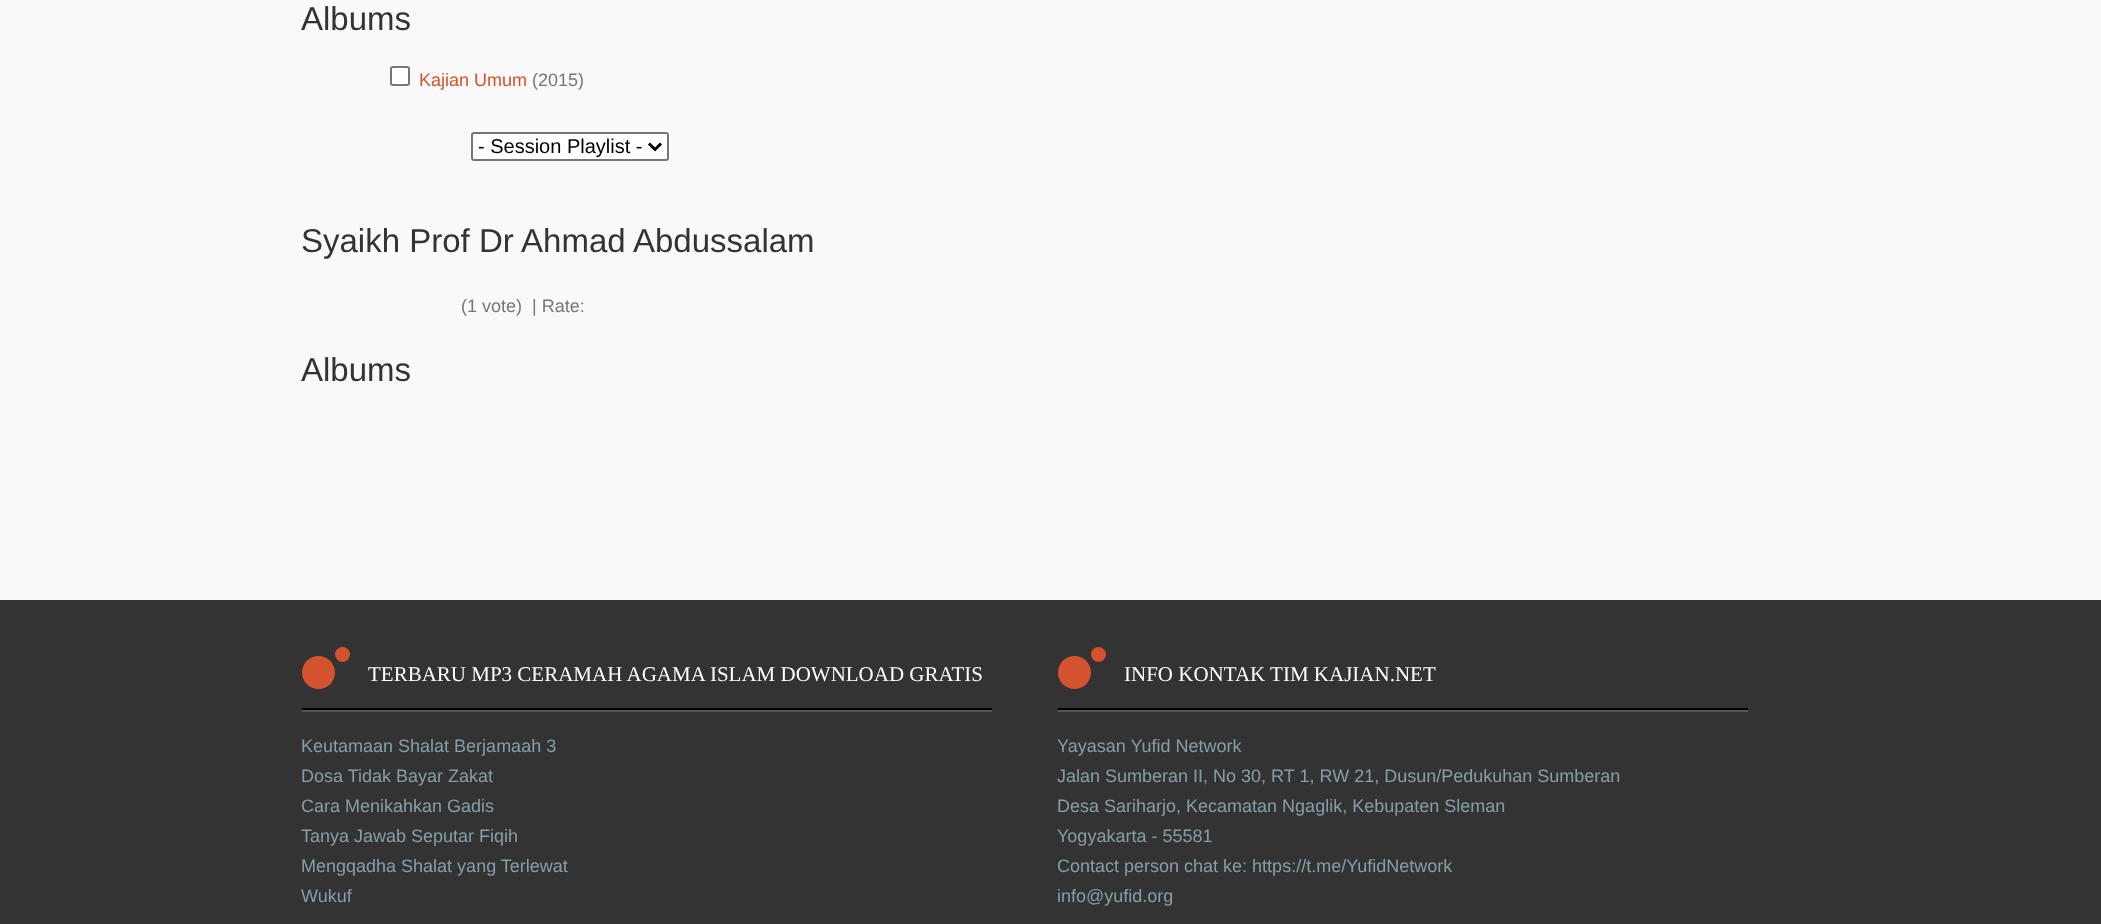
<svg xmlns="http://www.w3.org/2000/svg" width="2101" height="924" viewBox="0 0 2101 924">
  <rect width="100%" height="100%" fill="#f9f9f9"/>
  <text x="301" y="30" font-family="Liberation Sans" font-size="33" fill="#333333">Albums</text>
  <rect x="391" y="67" width="18" height="18" rx="2" fill="#ffffff" stroke="#767676" stroke-width="2"/>
  <text x="419" y="86" font-family="Liberation Sans" font-size="18" fill="#d4532e">Kajian Umum</text>
  <text x="532" y="86" font-family="Liberation Sans" font-size="18" fill="#777777">(2015)</text>
  <rect x="472" y="133" width="196" height="27" rx="2" fill="#ffffff" stroke="#767676" stroke-width="2"/>
  <path d="M649 143.5L655 149.5L661 143.5" fill="none" stroke="#000000" stroke-width="3"/>
  <text x="478" y="153" font-family="Liberation Sans" font-size="20" fill="#000000">- Session Playlist -</text>
  <text x="301" y="252" font-family="Liberation Sans" font-size="33" fill="#333333">Syaikh Prof Dr Ahmad Abdussalam</text>
  <text x="461" y="312" font-family="Liberation Sans" font-size="18" fill="#777777" xml:space="preserve">(1 vote)  | Rate:</text>
  <text x="301" y="381" font-family="Liberation Sans" font-size="33" fill="#333333">Albums</text>
  <rect x="0" y="600" width="2101" height="324" fill="#333333"/>
  <rect x="302" y="710" width="690" height="2" fill="#555555"/>
  <rect x="302" y="708" width="690" height="2" fill="#000000"/>
  <circle cx="318.5" cy="672.5" r="16.5" fill="#d4532e"/>
  <circle cx="342.5" cy="654.5" r="7.5" fill="#d4532e"/>
  <text x="368" y="681" font-family="Liberation Serif" font-size="21" fill="#ffffff">TERBARU MP3 CERAMAH AGAMA ISLAM DOWNLOAD GRATIS</text>
  <text x="301" y="752" font-family="Liberation Sans" font-size="18" fill="#879ea9">Keutamaan Shalat Berjamaah 3</text>
  <text x="301" y="782" font-family="Liberation Sans" font-size="18" fill="#879ea9">Dosa Tidak Bayar Zakat</text>
  <text x="301" y="812" font-family="Liberation Sans" font-size="18" fill="#879ea9">Cara Menikahkan Gadis</text>
  <text x="301" y="842" font-family="Liberation Sans" font-size="18" fill="#879ea9">Tanya Jawab Seputar Fiqih</text>
  <text x="301" y="872" font-family="Liberation Sans" font-size="18" fill="#879ea9">Mengqadha Shalat yang Terlewat</text>
  <text x="301" y="902" font-family="Liberation Sans" font-size="18" fill="#879ea9">Wukuf</text>
  <rect x="1058" y="710" width="690" height="2" fill="#555555"/>
  <rect x="1058" y="708" width="690" height="2" fill="#000000"/>
  <circle cx="1074.5" cy="672.5" r="16.5" fill="#d4532e"/>
  <circle cx="1098.5" cy="654.5" r="7.5" fill="#d4532e"/>
  <text x="1124" y="681" font-family="Liberation Serif" font-size="21" fill="#ffffff">INFO KONTAK TIM KAJIAN.NET</text>
  <text x="1057" y="752" font-family="Liberation Sans" font-size="18" fill="#879ea9">Yayasan Yufid Network</text>
  <text x="1057" y="782" font-family="Liberation Sans" font-size="18" fill="#879ea9">Jalan Sumberan II, No 30, RT 1, RW 21, Dusun/Pedukuhan Sumberan</text>
  <text x="1057" y="812" font-family="Liberation Sans" font-size="18" fill="#879ea9">Desa Sariharjo, Kecamatan Ngaglik, Kebupaten Sleman</text>
  <text x="1057" y="842" font-family="Liberation Sans" font-size="18" fill="#879ea9">Yogyakarta - 55581</text>
  <text x="1057" y="872" font-family="Liberation Sans" font-size="18" fill="#879ea9">Contact person chat ke: https://t.me/YufidNetwork</text>
  <text x="1057" y="902" font-family="Liberation Sans" font-size="18" fill="#879ea9">info@yufid.org</text>
</svg>
